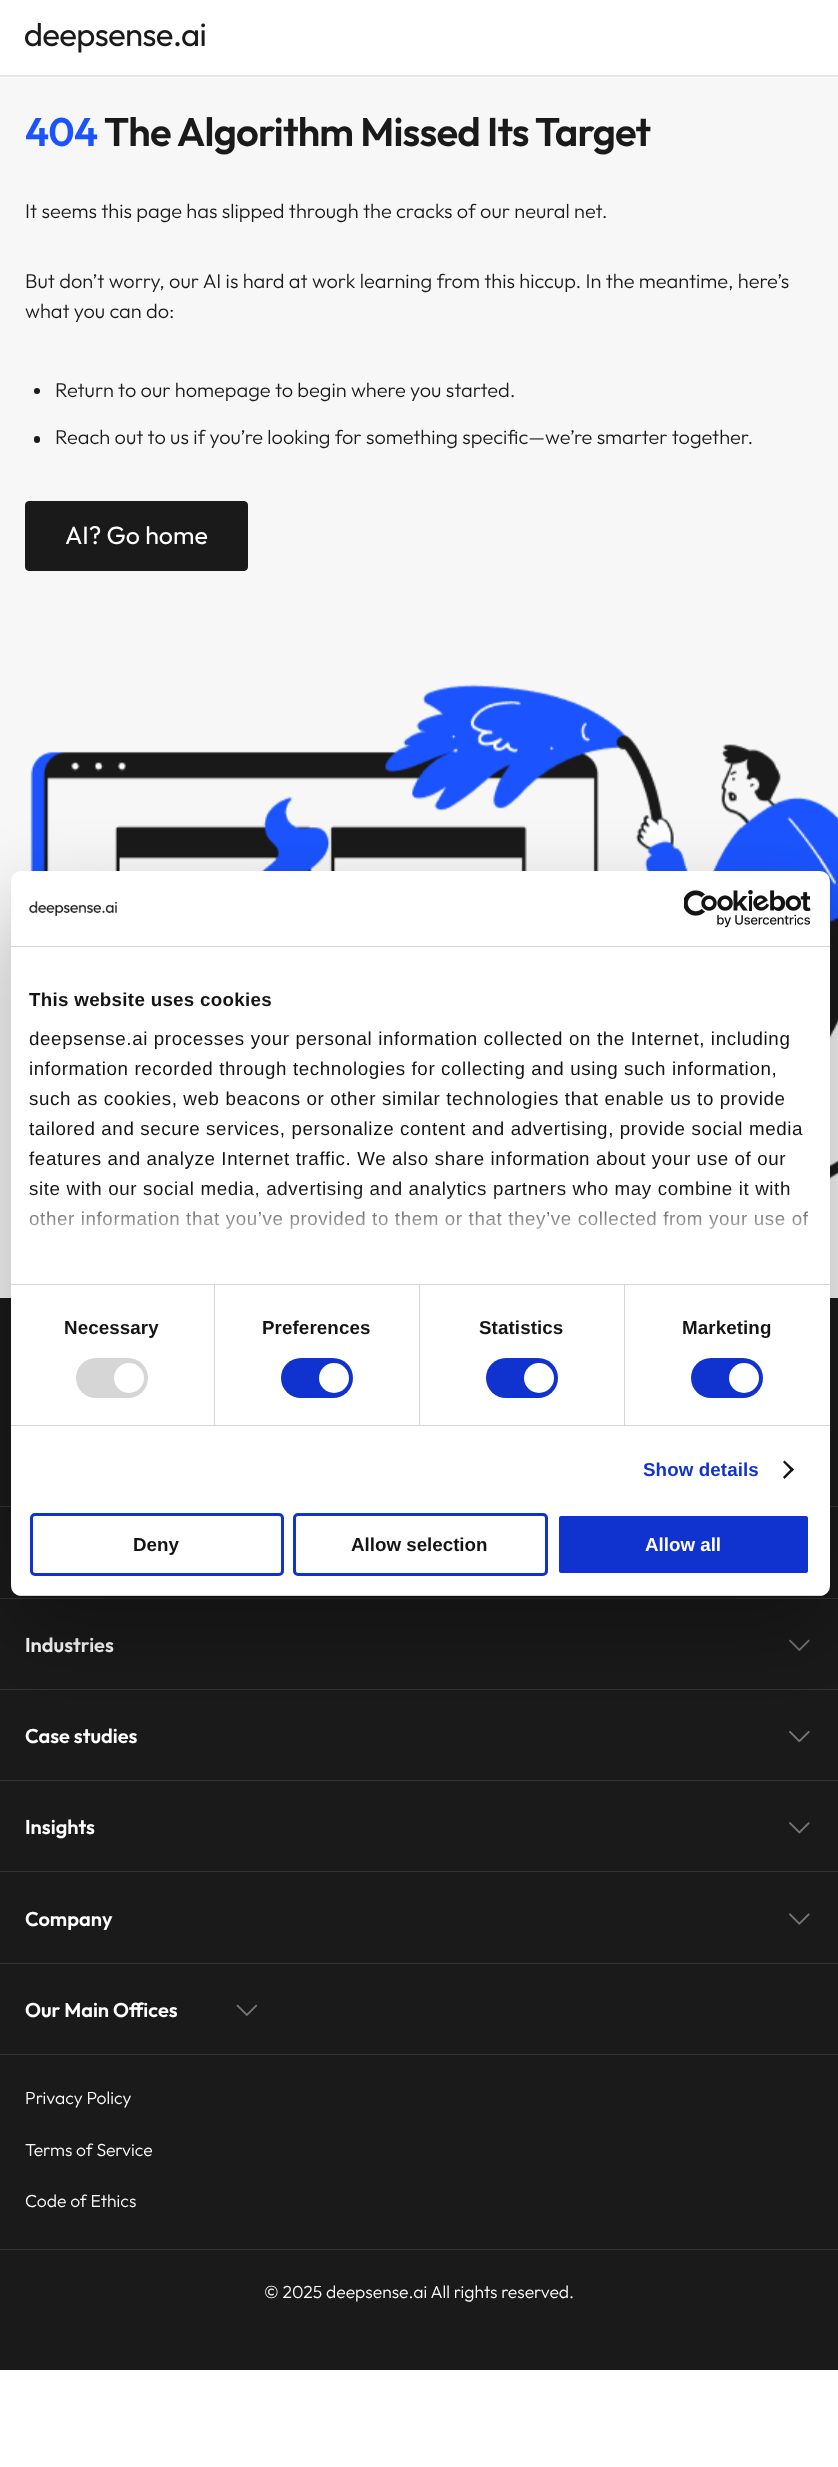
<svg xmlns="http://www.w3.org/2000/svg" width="838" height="2467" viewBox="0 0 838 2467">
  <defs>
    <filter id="blur1" x="-50%" y="-200%" width="200%" height="500%"><feGaussianBlur stdDeviation="42.5"/></filter>
    <linearGradient id="g1" gradientUnits="userSpaceOnUse" x1="412" y1="1284" x2="412" y2="1190"><stop offset="0" stop-color="#ffffff"/><stop offset="0.5" stop-color="#ffffff" stop-opacity="0.8"/><stop offset="1" stop-color="#ffffff" stop-opacity="0"/></linearGradient>
    <clipPath id="clip1"><rect x="11" y="871" width="819" height="725" rx="10"/></clipPath>
  </defs>
  <rect width="100%" height="100%" fill="#ffffff"/>
  <rect x="0" y="75" width="838" height="2" fill="#e6e6e6"/>
  <image x="25" y="23" width="180" height="30" href="img1.png"/>
  <rect x="0" y="78" width="838" height="1220" fill="#f7f7f7"/>
  <text x="25" y="146" font-family="Outfit" font-size="40" font-weight="600" letter-spacing="-0.8" fill="#1b54ff">404</text>
  <text x="104" y="146" font-family="Outfit" font-size="40" font-weight="600" letter-spacing="-0.8" fill="#1a1a1a">The Algorithm Missed Its Target</text>
  <text x="25" y="218" font-family="Outfit" font-size="20" font-weight="300" fill="#1a1a1a">It seems this page has slipped through the cracks of our neural net.</text>
  <text x="25" y="288" font-family="Outfit" font-size="20" font-weight="300" fill="#1a1a1a">But don’t worry, our AI is hard at work learning from this hiccup. In the meantime, here’s</text>
  <text x="25" y="318" font-family="Outfit" font-size="20" font-weight="300" fill="#1a1a1a">what you can do:</text>
  <circle cx="37" cy="391" r="3" fill="#1a1a1a"/>
  <text x="55" y="397" font-family="Outfit" font-size="20" font-weight="300" fill="#1a1a1a">Return to our homepage to begin where you started.</text>
  <rect x="34" y="436" width="6" height="7" rx="3" fill="#1a1a1a"/>
  <text x="55" y="444" font-family="Outfit" font-size="20" font-weight="300" fill="#1a1a1a">Reach out to us if you’re looking for something specific—we’re smarter together.</text>
  <rect x="25.5" y="501.5" width="222" height="69" rx="3.5" fill="#1a1a1a" stroke="#1a1a1a"/>
  <text x="65" y="544" font-family="Outfit" font-size="25" fill="#ffffff">AI? Go home</text>
  <image x="30" y="684" width="808" height="496" href="img2.png"/>
  <rect x="0" y="1298" width="838" height="1072" fill="#1a1a1a"/>
  <rect x="0" y="1506" width="838" height="1" fill="#333333"/>
  <rect x="0" y="1598" width="838" height="1" fill="#333333"/>
  <rect x="0" y="1689" width="838" height="1" fill="#333333"/>
  <text x="25" y="1652" font-family="Outfit" font-size="20" font-weight="600" fill="#ffffff">Industries</text>
  <image x="789" y="1639" width="21" height="12" href="img3.png"/>
  <rect x="0" y="1780" width="838" height="1" fill="#333333"/>
  <text x="25" y="1743" font-family="Outfit" font-size="20" font-weight="600" fill="#ffffff">Case studies</text>
  <image x="789" y="1731" width="21" height="12" href="img4.png"/>
  <rect x="0" y="1871" width="838" height="1" fill="#333333"/>
  <text x="25" y="1834" font-family="Outfit" font-size="20" font-weight="600" fill="#ffffff">Insights</text>
  <image x="789" y="1822" width="21" height="12" href="img5.png"/>
  <rect x="0" y="1963" width="838" height="1" fill="#333333"/>
  <text x="25" y="1926" font-family="Outfit" font-size="20" font-weight="600" fill="#ffffff">Company</text>
  <image x="789" y="1913" width="21" height="12" href="img6.png"/>
  <rect x="0" y="2054" width="838" height="1" fill="#333333"/>
  <text x="25" y="2017" font-family="Outfit" font-size="20" font-weight="600" fill="#ffffff">Our Main Offices</text>
  <image x="236" y="2004" width="22" height="12" href="img7.png"/>
  <text x="25" y="2104" font-family="Outfit" font-size="17.5" font-weight="300" fill="#ffffff">Privacy Policy</text>
  <text x="25" y="2156" font-family="Outfit" font-size="17.5" font-weight="300" fill="#ffffff">Terms of Service</text>
  <text x="25" y="2207" font-family="Outfit" font-size="17.5" font-weight="300" fill="#ffffff">Code of Ethics</text>
  <rect x="0" y="2249" width="838" height="1" fill="#333333"/>
  <text x="264" y="2298" font-family="Outfit" font-size="17.5" font-weight="300" fill="#ffffff">© 2025 deepsense.ai All rights reserved.</text>
  <rect x="11" y="911" width="819" height="725" rx="10" fill="#000000" fill-opacity="0.3" filter="url(#blur1)"/>
  <rect x="11" y="871" width="819" height="725" rx="10" fill="#ffffff"/>
  <rect x="11" y="946" width="819" height="1" fill="#d6d6d6"/>
  <image x="29" y="901" width="88" height="15" href="img8.png"/>
  <image x="684" y="890" width="127" height="38" href="img9.png"/>
  <rect x="11" y="1284" width="819" height="1" fill="#d6d6d6"/>
  <text x="29" y="1006" font-family="Liberation Sans" font-size="18.75" font-weight="bold" letter-spacing="0.3" fill="#141414">This website uses cookies</text>
  <text x="29" y="1045" font-family="Liberation Sans" font-size="18.75" letter-spacing="0.62" fill="#141414">deepsense.ai processes your personal information collected on the Internet, including</text>
  <text x="29" y="1075" font-family="Liberation Sans" font-size="18.75" letter-spacing="0.62" fill="#141414">information recorded through technologies for collecting and using such information,</text>
  <text x="29" y="1105" font-family="Liberation Sans" font-size="18.75" letter-spacing="0.62" fill="#141414">such as cookies, web beacons or other similar technologies that enable us to provide</text>
  <text x="29" y="1135" font-family="Liberation Sans" font-size="18.75" letter-spacing="0.62" fill="#141414">tailored and secure services, personalize content and advertising, provide social media</text>
  <text x="29" y="1165" font-family="Liberation Sans" font-size="18.75" letter-spacing="0.62" fill="#141414">features and analyze Internet traffic. We also share information about your use of our</text>
  <text x="29" y="1195" font-family="Liberation Sans" font-size="18.75" letter-spacing="0.62" fill="#141414">site with our social media, advertising and analytics partners who may combine it with</text>
  <text x="29" y="1225" font-family="Liberation Sans" font-size="18.75" letter-spacing="0.62" fill="#141414">other information that you’ve provided to them or that they’ve collected from your use of</text>
  <rect x="29" y="1191" width="780" height="38" fill="url(#g1)"/>
  <rect x="11" y="1425" width="819" height="1" fill="#d6d6d6"/>
  <rect x="214" y="1285" width="1" height="140" fill="#d6d6d6"/>
  <text x="64" y="1334" font-family="Liberation Sans" font-size="18.75" font-weight="bold" letter-spacing="0.1" fill="#141414">Necessary</text>
  <rect x="76" y="1358" width="72" height="40" rx="20" fill="#d6d6d6"/>
  <circle cx="129" cy="1378" r="15" fill="#ffffff"/>
  <rect x="419" y="1285" width="1" height="140" fill="#d6d6d6"/>
  <text x="262" y="1334" font-family="Liberation Sans" font-size="18.75" font-weight="bold" letter-spacing="0.1" fill="#141414">Preferences</text>
  <rect x="281" y="1358" width="72" height="40" rx="20" fill="#1032cf"/>
  <circle cx="334" cy="1378" r="15" fill="#ffffff"/>
  <rect x="624" y="1285" width="1" height="140" fill="#d6d6d6"/>
  <text x="479" y="1334" font-family="Liberation Sans" font-size="18.75" font-weight="bold" letter-spacing="0.1" fill="#141414">Statistics</text>
  <rect x="486" y="1358" width="72" height="40" rx="20" fill="#1032cf"/>
  <circle cx="539" cy="1378" r="15" fill="#ffffff"/>
  <text x="682" y="1334" font-family="Liberation Sans" font-size="18.75" font-weight="bold" letter-spacing="0.1" fill="#141414">Marketing</text>
  <rect x="691" y="1358" width="72" height="40" rx="20" fill="#1032cf"/>
  <circle cx="744" cy="1378" r="15" fill="#ffffff"/>
  <text x="643" y="1476" font-family="Liberation Sans" font-size="18.75" font-weight="bold" letter-spacing="0.1" fill="#1032cf">Show details</text>
  <path d="M784.5 1460.5L794 1469.5L792 1471.5L783 1462Z" fill="#141414"/>
  <path d="M792 1468L794 1469.5L784.5 1479L783 1477Z" fill="#141414"/>
  <g clip-path="url(#clip1)">
    <rect x="11" y="1595" width="819" height="1" fill="#d6d6d6"/>
  </g>
  <rect x="31.5" y="1514.5" width="251" height="60" rx="3.5" fill="none" stroke="#1032cf" stroke-width="3"/>
  <text x="133" y="1551" font-family="Liberation Sans" font-size="18.75" font-weight="bold" fill="#141414">Deny</text>
  <rect x="294.5" y="1514.5" width="252" height="60" rx="3.5" fill="none" stroke="#1032cf" stroke-width="3"/>
  <text x="351" y="1551" font-family="Liberation Sans" font-size="18.75" font-weight="bold" fill="#141414">Allow selection</text>
  <rect x="557.5" y="1514.5" width="252" height="60" rx="3.5" fill="#1032cf" stroke="#ffffff" stroke-width="3"/>
  <text x="645" y="1551" font-family="Liberation Sans" font-size="18.75" font-weight="bold" fill="#ffffff">Allow all</text>
</svg>
